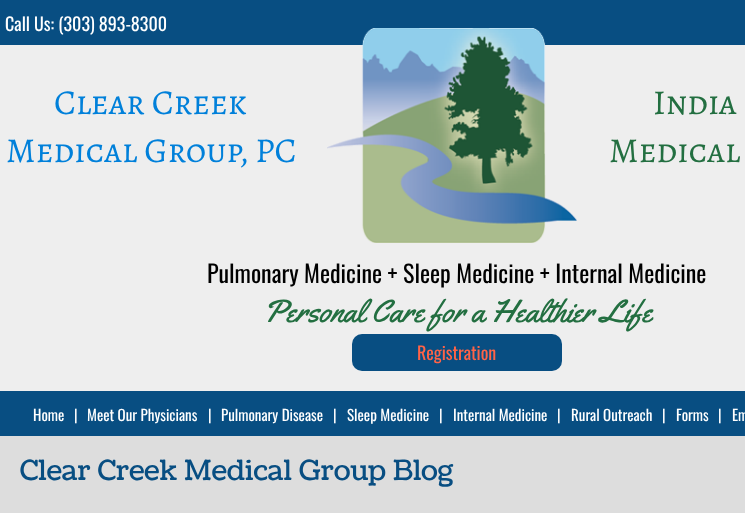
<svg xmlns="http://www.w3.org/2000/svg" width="745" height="513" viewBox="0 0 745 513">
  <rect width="100%" height="100%" fill="#eeeeee"/>
  <rect x="0" y="0" width="745" height="45" fill="#084e82"/>
  <text x="5" y="31" font-family="Oswald" font-size="18" fill="#ffffff">Call Us: (303) 893-8300</text>
  <text x="54" y="114" font-family="Alegreya SC" font-size="35" fill="#0080da">Clear Creek</text>
  <text x="6" y="162" font-family="Alegreya SC" font-size="35" fill="#0080da">Medical Group, PC</text>
  <image x="327" y="28" width="250" height="215" href="img1.png"/>
  <text x="653" y="114" font-family="Alegreya SC" font-size="35" fill="#236f41">India</text>
  <text x="609" y="162" font-family="Alegreya SC" font-size="35" fill="#236f41">Medical</text>
  <text x="207" y="283" font-family="Oswald" font-size="24" fill="#000000">Pulmonary Medicine + Sleep Medicine + Internal Medicine</text>
  <text x="263" y="322" font-family="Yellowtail" font-size="32" fill="#236f41">Personal Care for a Healthier Life</text>
  <rect x="352" y="334" width="210" height="37" rx="10" fill="#084e82"/>
  <text x="417" y="360" font-family="Oswald" font-size="18" fill="#ff6347">Registration</text>
  <rect x="0" y="391" width="745" height="45" fill="#084e82"/>
  <text x="33" y="421" font-family="Oswald" font-size="15" fill="#ffffff">Home</text>
  <text x="74" y="421" font-family="Oswald" font-size="15" fill="#ffffff">|</text>
  <text x="87" y="421" font-family="Oswald" font-size="15" fill="#ffffff">Meet Our Physicians</text>
  <text x="208" y="421" font-family="Oswald" font-size="15" fill="#ffffff">|</text>
  <text x="221" y="421" font-family="Oswald" font-size="15" fill="#ffffff">Pulmonary Disease</text>
  <text x="333" y="421" font-family="Oswald" font-size="15" fill="#ffffff">|</text>
  <text x="347" y="421" font-family="Oswald" font-size="15" fill="#ffffff">Sleep Medicine</text>
  <text x="439" y="421" font-family="Oswald" font-size="15" fill="#ffffff">|</text>
  <text x="453" y="421" font-family="Oswald" font-size="15" fill="#ffffff">Internal Medicine</text>
  <text x="557" y="421" font-family="Oswald" font-size="15" fill="#ffffff">|</text>
  <text x="571" y="421" font-family="Oswald" font-size="15" fill="#ffffff">Rural Outreach</text>
  <text x="662" y="421" font-family="Oswald" font-size="15" fill="#ffffff">|</text>
  <text x="676" y="421" font-family="Oswald" font-size="15" fill="#ffffff">Forms</text>
  <text x="718" y="421" font-family="Oswald" font-size="15" fill="#ffffff">|</text>
  <text x="732" y="421" font-family="Oswald" font-size="15" fill="#ffffff">Em</text>
  <rect x="0" y="436" width="745" height="77" fill="#dddddd"/>
  <text x="20" y="480" font-family="Coustard" font-size="28" fill="#084e82">Clear Creek Medical Group Blog</text>
</svg>
